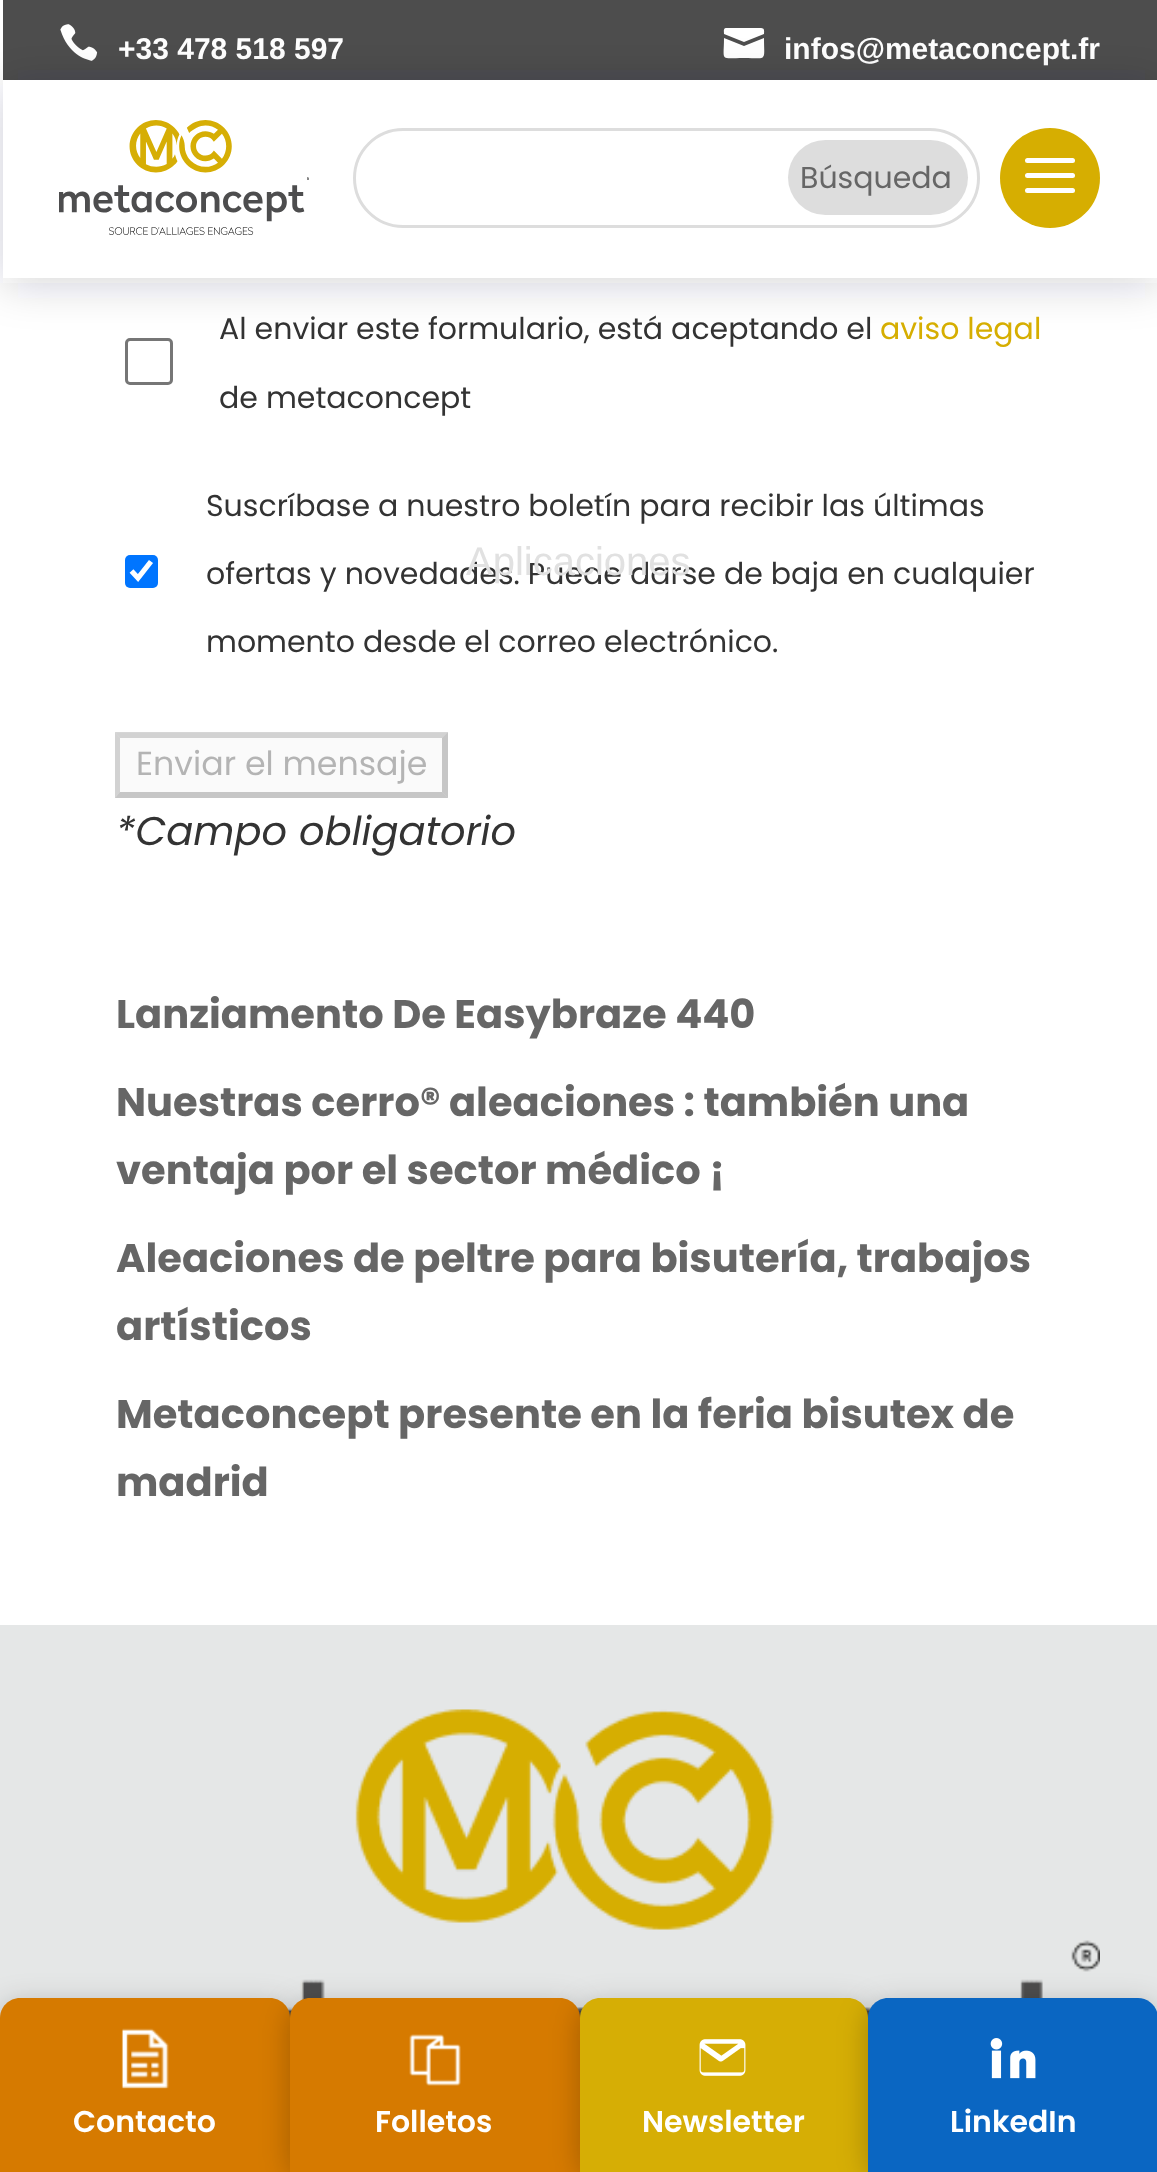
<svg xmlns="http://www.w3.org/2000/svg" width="1157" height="2172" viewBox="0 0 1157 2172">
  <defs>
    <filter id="blur1" x="-50%" y="-200%" width="200%" height="500%"><feGaussianBlur stdDeviation="22.5"/></filter>
    <filter id="blur2" x="-50%" y="-200%" width="200%" height="500%"><feGaussianBlur stdDeviation="15"/></filter>
  </defs>
  <rect width="100%" height="100%" fill="#ffffff"/>
  <rect x="3" y="0" width="1154" height="80" fill="#4d4d4d"/>
  <image x="60" y="24" width="38" height="37" href="img1.png"/>
  <text x="118" y="59" font-family="Liberation Sans" font-size="30" font-weight="bold" fill="#ffffff">+33 478 518 597</text>
  <path d="M761 28H726C723 28 724 32 724 34L744 42L764 34C764 32 765 28 761 28ZM724 38C724 62 719 58 744 58C768 58 764 62 764 38L744 46Z" fill="#ffffff"/>
  <text x="784" y="59" font-family="Liberation Sans" font-size="30" font-weight="bold" fill="#ffffff">infos@metaconcept.fr</text>
  <rect x="126.5" y="339.5" width="45" height="44" rx="3.5" fill="none" stroke="#767676" stroke-width="3"/>
  <rect x="3" y="85" width="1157" height="198" fill="#2d2e3a" fill-opacity="0.2" filter="url(#blur1)"/>
  <rect x="3" y="80" width="1154" height="198" fill="#ffffff"/>
  <image x="59" y="120" width="250" height="115" href="img2.png"/>
  <rect x="354.5" y="129.5" width="624" height="97" rx="48.5" fill="none" stroke="#dddddd" stroke-width="3"/>
  <rect x="788" y="140" width="180" height="75" rx="37.5" fill="#dddddd"/>
  <text x="800" y="188" font-family="Poppins" font-size="30" fill="#666666">Búsqueda</text>
  <circle cx="1050" cy="178" r="50" fill="#d6ae01"/>
  <rect x="1025" y="158" width="50" height="5" rx="2.5" fill="#ffffff"/>
  <rect x="1025" y="173" width="50" height="5" rx="2.5" fill="#ffffff"/>
  <rect x="1025" y="188" width="50" height="5" rx="2.5" fill="#ffffff"/>
  <text x="206" y="584" font-family="Poppins" font-size="30" fill="#333333">ofertas y novedades. Puede darse de baja en cualquier</text>
  <text x="466" y="575" font-family="Liberation Sans" font-size="40" fill="#e1e1e1">Aplicaciones</text>
  <text x="219" y="339" font-family="Poppins" font-size="30" fill="#333333">Al enviar este formulario, está aceptando el</text>
  <text x="880" y="339" font-family="Poppins" font-size="30" fill="#d6ae01">aviso legal</text>
  <text x="219" y="408" font-family="Poppins" font-size="30" fill="#333333">de metaconcept</text>
  <rect x="125" y="555" width="33" height="33" rx="5" fill="#0075ff"/>
  <path d="M131.5 571L138 578L151 561.5" fill="none" stroke="#ffffff" stroke-width="5.2"/>
  <text x="206" y="516" font-family="Poppins" font-size="30" fill="#333333">Suscríbase a nuestro boletín para recibir las últimas</text>
  <text x="206" y="652" font-family="Poppins" font-size="30" fill="#333333">momento desde el correo electrónico.</text>
  <rect x="115" y="733" width="333" height="65" fill="#fafafa"/>
  <path d="M115 732H448L442 738H120Z" fill="#767676" fill-opacity="0.3"/>
  <path d="M448 732V798L442 792V738Z" fill="#4f4f4f" fill-opacity="0.3"/>
  <path d="M448 798H115L120 792H442Z" fill="#4f4f4f" fill-opacity="0.3"/>
  <path d="M115 798V732L120 738V792Z" fill="#767676" fill-opacity="0.3"/>
  <text x="136" y="775" font-family="Poppins" font-size="33.25" fill="#b4b4b4">Enviar el mensaje</text>
  <text x="116" y="845" font-family="Poppins" font-size="40" font-style="italic" fill="#333333">*Campo obligatorio</text>
  <text x="116" y="1028" font-family="Poppins" font-size="40" font-weight="bold" fill="#666666">Lanziamento De Easybraze 440</text>
  <text x="116" y="1116" font-family="Poppins" font-size="40" font-weight="bold" fill="#666666">Nuestras cerro® aleaciones : también una</text>
  <text x="116" y="1184" font-family="Poppins" font-size="40" font-weight="bold" fill="#666666">ventaja por el sector médico ¡</text>
  <text x="116" y="1272" font-family="Poppins" font-size="40" font-weight="bold" fill="#666666">Aleaciones de peltre para bisutería, trabajos</text>
  <text x="116" y="1340" font-family="Poppins" font-size="40" font-weight="bold" fill="#666666">artísticos</text>
  <text x="116" y="1428" font-family="Poppins" font-size="40" font-weight="bold" fill="#666666">Metaconcept presente en la feria bisutex de</text>
  <text x="116" y="1496" font-family="Poppins" font-size="40" font-weight="bold" fill="#666666">madrid</text>
  <rect x="0" y="1625" width="1157" height="393" fill="#e5e7e7"/>
  <image x="287" y="1709" width="813" height="309" href="img3.png"/>
  <rect x="0" y="2005" width="290" height="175" rx="20" fill="#000000" fill-opacity="0.25" filter="url(#blur2)"/>
  <path d="M20 1998H270C281 1998 290 2007 290 2018V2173H0V2018C0 2007 9 1998 20 1998Z" fill="#d67a00"/>
  <image x="121" y="2028" width="48" height="61" href="img4.png"/>
  <text x="73" y="2132" font-family="Poppins" font-size="30" font-weight="600" fill="#ffffff">Contacto</text>
  <rect x="290" y="2005" width="290" height="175" rx="20" fill="#000000" fill-opacity="0.25" filter="url(#blur2)"/>
  <path d="M310 1998H560C571 1998 580 2007 580 2018V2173H290V2018C290 2007 299 1998 310 1998Z" fill="#d67a00"/>
  <image x="409" y="2034" width="52" height="52" href="img5.png"/>
  <text x="375" y="2132" font-family="Poppins" font-size="30" font-weight="600" fill="#ffffff">Folletos</text>
  <rect x="580" y="2005" width="288" height="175" rx="20" fill="#000000" fill-opacity="0.25" filter="url(#blur2)"/>
  <path d="M600 1998H848C859 1998 868 2007 868 2018V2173H580V2018C580 2007 589 1998 600 1998Z" fill="#d6ae05"/>
  <image x="699" y="2039" width="47" height="37" href="img6.png"/>
  <text x="642" y="2132" font-family="Poppins" font-size="30" font-weight="600" fill="#ffffff">Newsletter</text>
  <rect x="868" y="2005" width="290" height="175" rx="20" fill="#000000" fill-opacity="0.25" filter="url(#blur2)"/>
  <path d="M888 1998H1138C1149 1998 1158 2007 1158 2018V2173H868V2018C868 2007 877 1998 888 1998Z" fill="#0a66c2"/>
  <image x="990" y="2038" width="46" height="41" href="img7.png"/>
  <text x="950" y="2132" font-family="Poppins" font-size="30" font-weight="600" fill="#ffffff">LinkedIn</text>
</svg>
